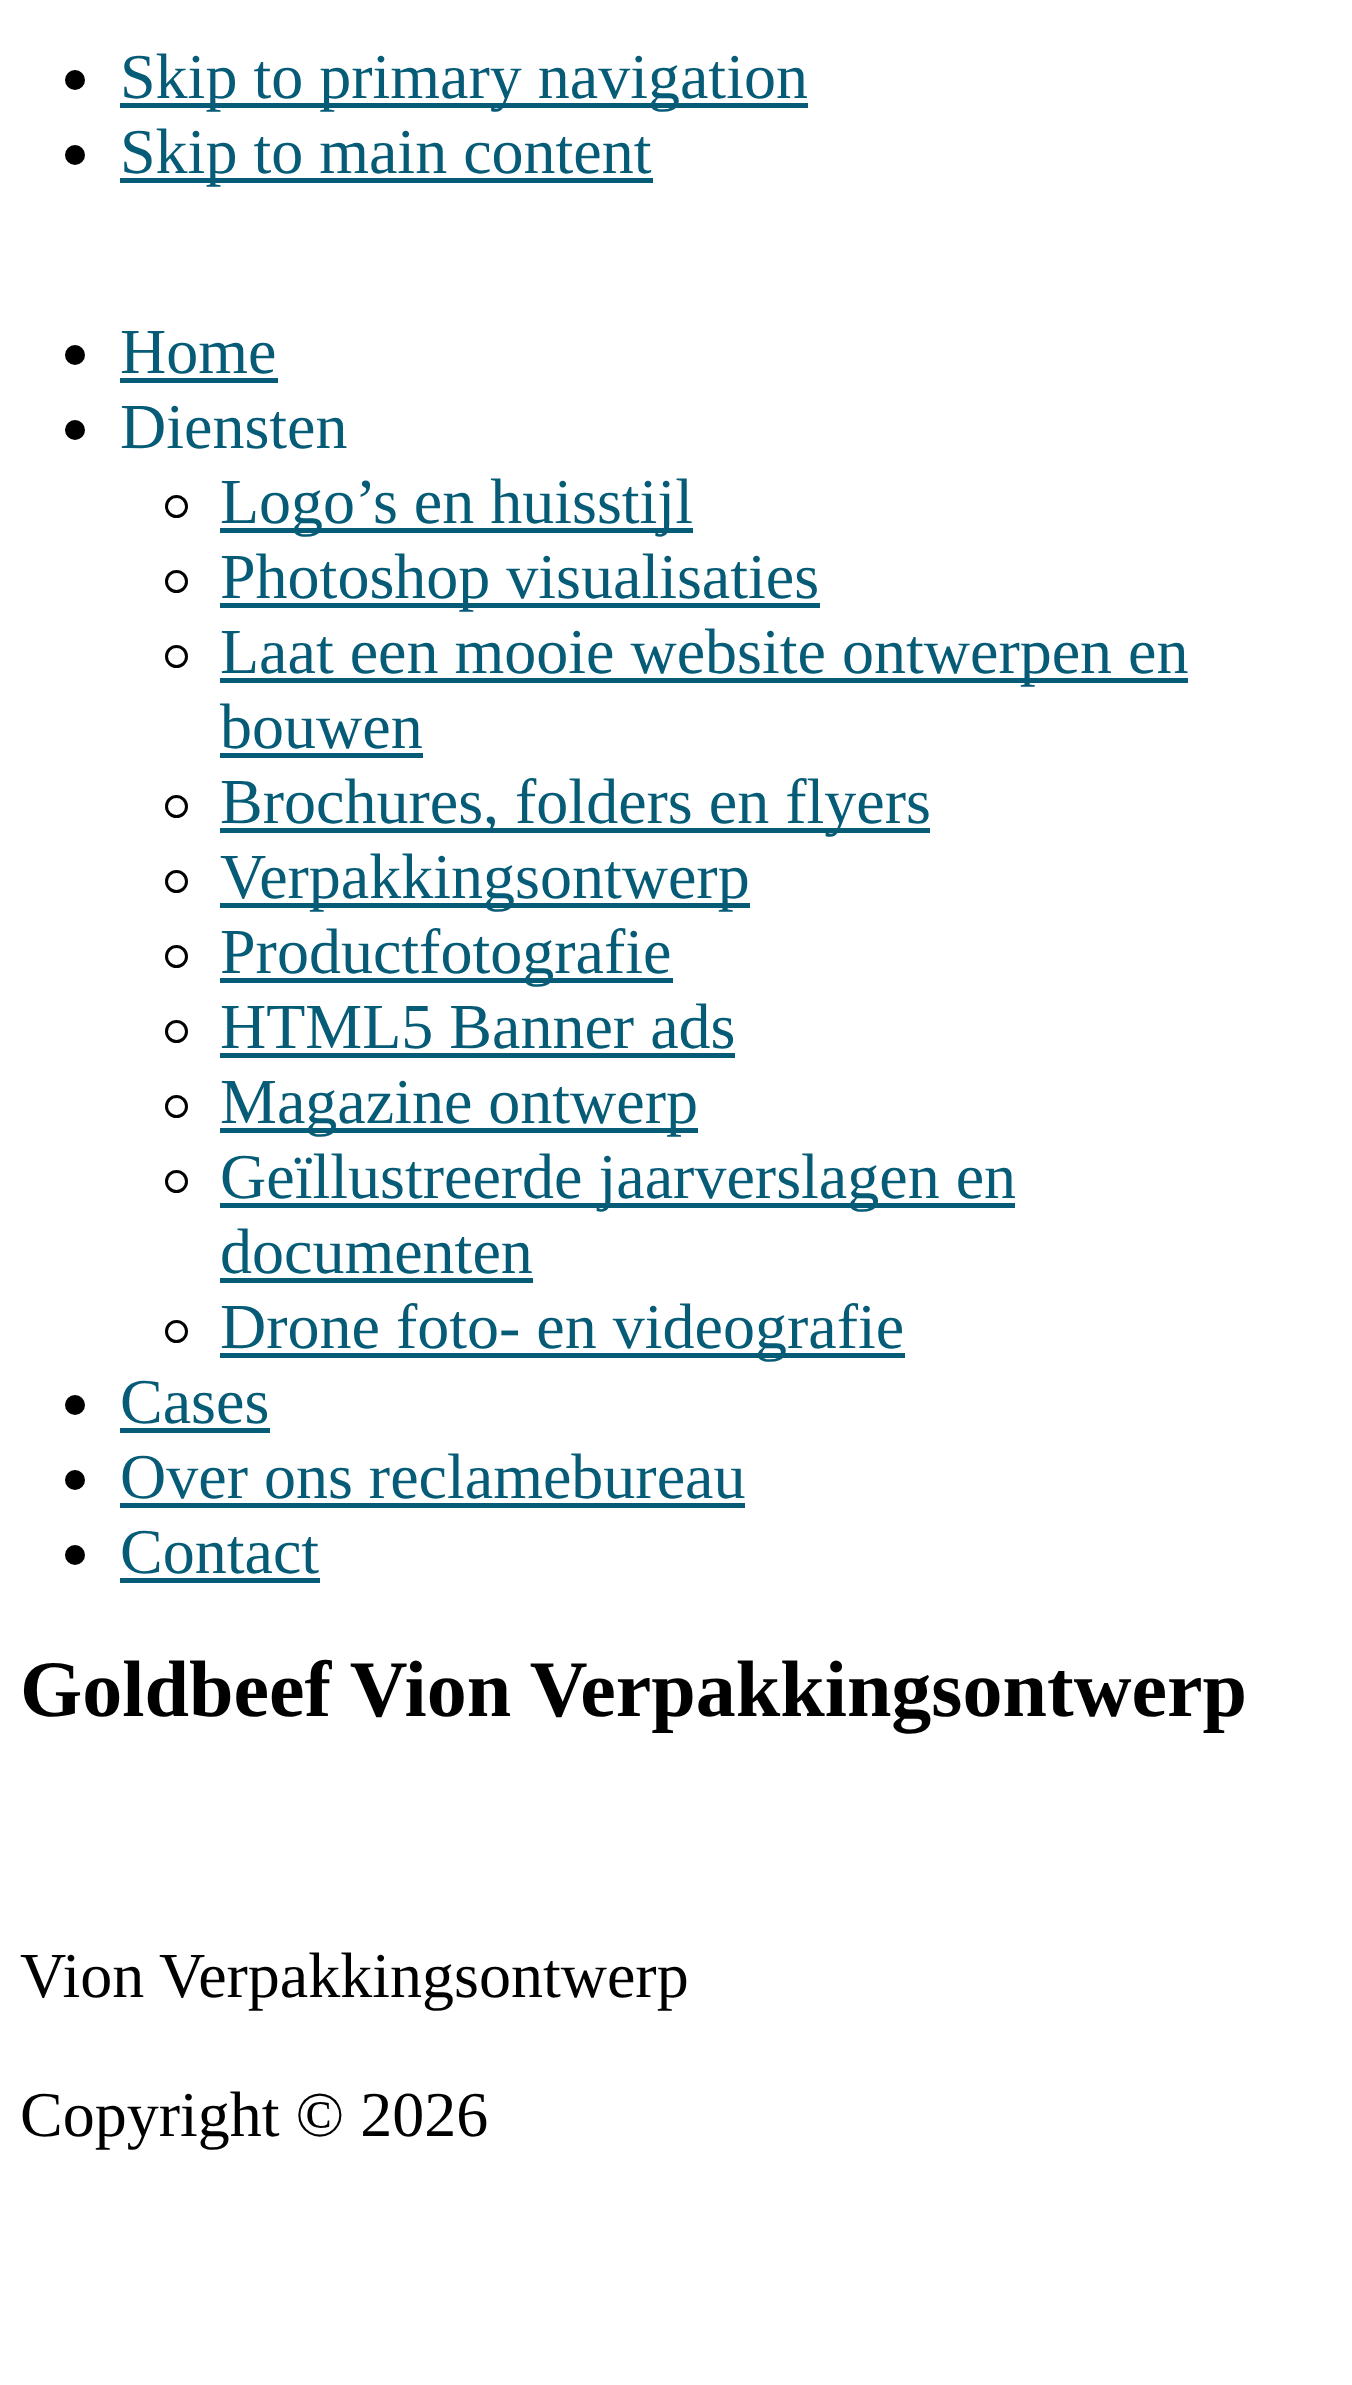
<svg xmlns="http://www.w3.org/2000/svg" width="1352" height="2385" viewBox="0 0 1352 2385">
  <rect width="100%" height="100%" fill="#ffffff"/>
  <circle cx="75" cy="80" r="10" fill="#000000"/>
  <rect x="120" y="103" width="688" height="5" fill="#065b76"/>
  <text x="120" y="98" font-family="Liberation Serif" font-size="64" fill="#065b76">Skip to primary navigation</text>
  <circle cx="75" cy="155" r="10" fill="#000000"/>
  <rect x="120" y="178" width="533" height="5" fill="#065b76"/>
  <text x="120" y="173" font-family="Liberation Serif" font-size="64" fill="#065b76">Skip to main content</text>
  <circle cx="75" cy="355" r="10" fill="#000000"/>
  <text x="120" y="373" font-family="Liberation Serif" font-size="64" fill="#065b76">Home</text>
  <rect x="120" y="378" width="158" height="5" fill="#065b76"/>
  <circle cx="75" cy="430" r="10" fill="#000000"/>
  <text x="120" y="448" font-family="Liberation Serif" font-size="64" fill="#065b76">Diensten</text>
  <circle cx="176.5" cy="506.5" r="10" fill="none" stroke="#000000" stroke-width="3"/>
  <rect x="220" y="528" width="473" height="5" fill="#065b76"/>
  <text x="220" y="523" font-family="Liberation Serif" font-size="64" fill="#065b76">Logo’s en huisstijl</text>
  <circle cx="176.5" cy="581.5" r="10" fill="none" stroke="#000000" stroke-width="3"/>
  <rect x="220" y="603" width="600" height="5" fill="#065b76"/>
  <text x="220" y="598" font-family="Liberation Serif" font-size="64" fill="#065b76">Photoshop visualisaties</text>
  <circle cx="176.5" cy="656.5" r="10" fill="none" stroke="#000000" stroke-width="3"/>
  <rect x="220" y="678" width="968" height="5" fill="#065b76"/>
  <text x="220" y="673" font-family="Liberation Serif" font-size="64" fill="#065b76">Laat een mooie website ontwerpen en</text>
  <text x="220" y="748" font-family="Liberation Serif" font-size="64" fill="#065b76">bouwen</text>
  <rect x="220" y="753" width="203" height="5" fill="#065b76"/>
  <circle cx="176.5" cy="806.5" r="10" fill="none" stroke="#000000" stroke-width="3"/>
  <rect x="220" y="828" width="710" height="5" fill="#065b76"/>
  <text x="220" y="823" font-family="Liberation Serif" font-size="64" fill="#065b76">Brochures, folders en flyers</text>
  <circle cx="176.5" cy="881.5" r="10" fill="none" stroke="#000000" stroke-width="3"/>
  <rect x="220" y="903" width="530" height="5" fill="#065b76"/>
  <text x="220" y="898" font-family="Liberation Serif" font-size="64" fill="#065b76">Verpakkingsontwerp</text>
  <circle cx="176.5" cy="956.5" r="10" fill="none" stroke="#000000" stroke-width="3"/>
  <rect x="220" y="978" width="453" height="5" fill="#065b76"/>
  <text x="220" y="973" font-family="Liberation Serif" font-size="64" fill="#065b76">Productfotografie</text>
  <circle cx="176.5" cy="1031.5" r="10" fill="none" stroke="#000000" stroke-width="3"/>
  <text x="220" y="1048" font-family="Liberation Serif" font-size="64" fill="#065b76">HTML5 Banner ads</text>
  <rect x="220" y="1053" width="515" height="5" fill="#065b76"/>
  <circle cx="176.5" cy="1106.5" r="10" fill="none" stroke="#000000" stroke-width="3"/>
  <rect x="220" y="1128" width="478" height="5" fill="#065b76"/>
  <text x="220" y="1123" font-family="Liberation Serif" font-size="64" fill="#065b76">Magazine ontwerp</text>
  <circle cx="176.5" cy="1181.5" r="10" fill="none" stroke="#000000" stroke-width="3"/>
  <rect x="220" y="1203" width="795" height="5" fill="#065b76"/>
  <text x="220" y="1198" font-family="Liberation Serif" font-size="64" fill="#065b76">Geïllustreerde jaarverslagen en</text>
  <text x="220" y="1273" font-family="Liberation Serif" font-size="64" fill="#065b76">documenten</text>
  <rect x="220" y="1278" width="313" height="5" fill="#065b76"/>
  <circle cx="176.5" cy="1331.5" r="10" fill="none" stroke="#000000" stroke-width="3"/>
  <rect x="220" y="1353" width="685" height="5" fill="#065b76"/>
  <text x="220" y="1348" font-family="Liberation Serif" font-size="64" fill="#065b76">Drone foto- en videografie</text>
  <circle cx="75" cy="1405" r="10" fill="#000000"/>
  <text x="120" y="1423" font-family="Liberation Serif" font-size="64" fill="#065b76">Cases</text>
  <rect x="120" y="1428" width="150" height="5" fill="#065b76"/>
  <circle cx="75" cy="1480" r="10" fill="#000000"/>
  <text x="120" y="1498" font-family="Liberation Serif" font-size="64" fill="#065b76">Over ons reclamebureau</text>
  <rect x="120" y="1503" width="625" height="5" fill="#065b76"/>
  <circle cx="75" cy="1555" r="10" fill="#000000"/>
  <text x="120" y="1573" font-family="Liberation Serif" font-size="64" fill="#065b76">Contact</text>
  <rect x="120" y="1578" width="200" height="5" fill="#065b76"/>
  <text x="20" y="1716" font-family="Liberation Serif" font-size="80" font-weight="bold" fill="#000000">Goldbeef Vion Verpakkingsontwerp</text>
  <text x="20" y="1997" font-family="Liberation Serif" font-size="64" fill="#000000">Vion Verpakkingsontwerp</text>
  <text x="20" y="2136" font-family="Liberation Serif" font-size="64" fill="#000000">Copyright © 2026</text>
</svg>
